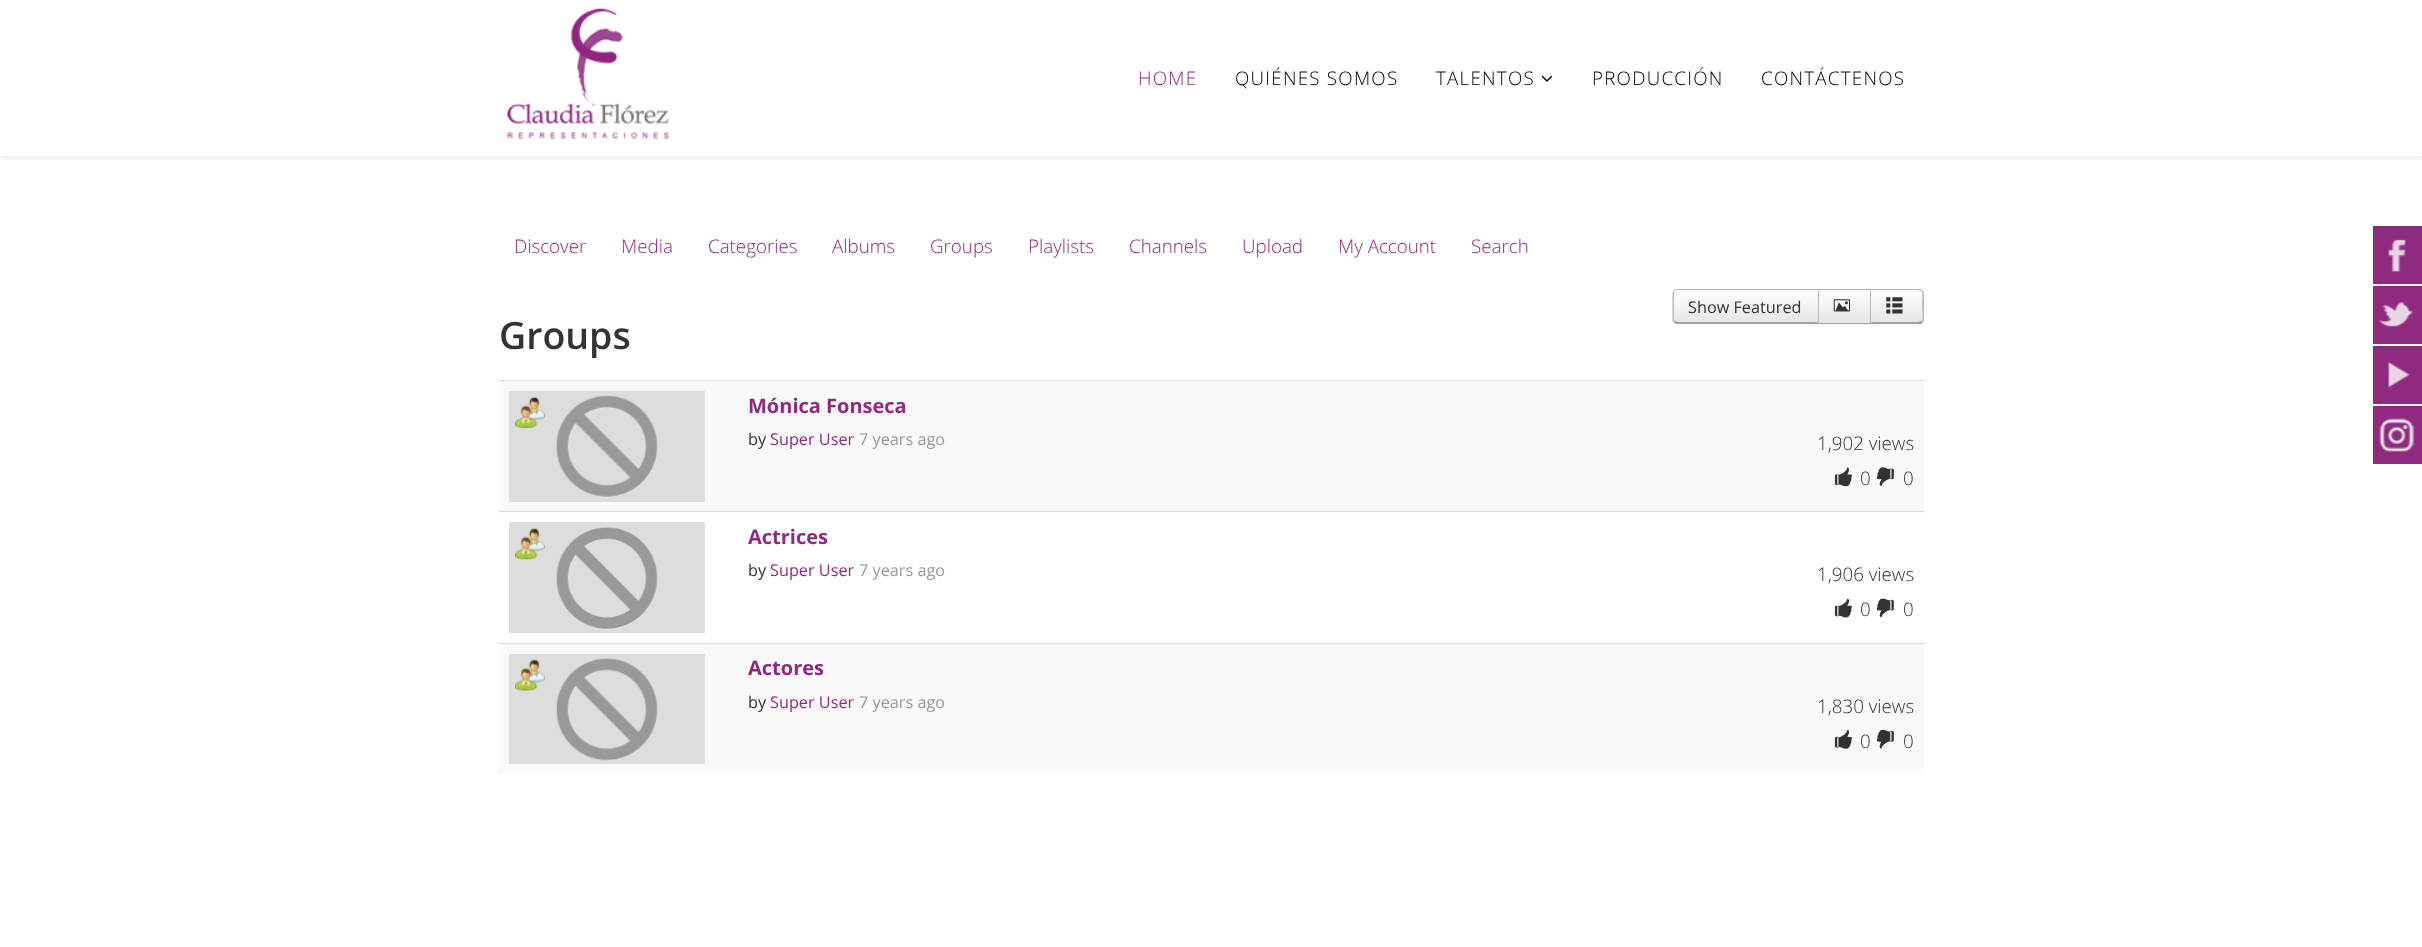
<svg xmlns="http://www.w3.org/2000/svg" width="2422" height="947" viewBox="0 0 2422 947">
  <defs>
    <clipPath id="clip1"><rect x="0" y="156" width="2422" height="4"/></clipPath>
    <filter id="blur1" x="-50%" y="-200%" width="200%" height="500%"><feGaussianBlur stdDeviation="2"/></filter>
    <filter id="blur2" x="-50%" y="-200%" width="200%" height="500%"><feGaussianBlur stdDeviation="1"/></filter>
    <clipPath id="clip2"><path d="M1678 289H1819V324H1678C1675 324 1673 322 1673 319V294C1673 291 1675 289 1678 289Z"/></clipPath>
    <linearGradient id="g1" gradientUnits="userSpaceOnUse" x1="1746" y1="290" x2="1746" y2="323"><stop offset="0" stop-color="#ffffff"/><stop offset="1" stop-color="#e6e6e6"/></linearGradient>
    <linearGradient id="g2" gradientUnits="userSpaceOnUse" x1="1844" y1="290" x2="1844" y2="323"><stop offset="0" stop-color="#ffffff"/><stop offset="1" stop-color="#e6e6e6"/></linearGradient>
    <clipPath id="clip3"><path d="M1870 289H1919C1922 289 1924 291 1924 294V319C1924 322 1922 324 1919 324H1870Z"/></clipPath>
    <linearGradient id="g3" gradientUnits="userSpaceOnUse" x1="1897" y1="290" x2="1897" y2="323"><stop offset="0" stop-color="#ffffff"/><stop offset="1" stop-color="#e6e6e6"/></linearGradient>
  </defs>
  <rect width="100%" height="100%" fill="#ffffff"/>
  <g clip-path="url(#clip1)">
    <rect x="0" y="4" width="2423" height="156" fill="#000000" fill-opacity="0.05" filter="url(#blur1)"/>
  </g>
  <image x="507" y="8" width="162" height="131" href="img1.png"/>
  <text x="1138" y="85" font-family="Open Sans" font-size="18.75" font-weight="300" letter-spacing="1.25" fill="#902a80">HOME</text>
  <text x="1235" y="85" font-family="Open Sans" font-size="18.75" font-weight="300" letter-spacing="1.25" fill="#000000">QUIÉNES SOMOS</text>
  <text x="1436" y="85" font-family="Open Sans" font-size="18.75" font-weight="300" letter-spacing="1.25" fill="#000000">TALENTOS</text>
  <image x="1541" y="75" width="12" height="7" href="img2.png"/>
  <text x="1592" y="85" font-family="Open Sans" font-size="18.75" font-weight="300" letter-spacing="1.25" fill="#000000">PRODUCCIÓN</text>
  <text x="1761" y="85" font-family="Open Sans" font-size="18.75" font-weight="300" letter-spacing="1.25" fill="#000000">CONTÁCTENOS</text>
  <text x="514" y="253" font-family="Open Sans" font-size="18.75" font-weight="300" fill="#902a80">Discover</text>
  <text x="621" y="253" font-family="Open Sans" font-size="18.75" font-weight="300" fill="#902a80">Media</text>
  <text x="708" y="253" font-family="Open Sans" font-size="18.75" font-weight="300" fill="#902a80">Categories</text>
  <text x="832" y="253" font-family="Open Sans" font-size="18.75" font-weight="300" fill="#902a80">Albums</text>
  <text x="930" y="253" font-family="Open Sans" font-size="18.75" font-weight="300" fill="#902a80">Groups</text>
  <text x="1028" y="253" font-family="Open Sans" font-size="18.75" font-weight="300" fill="#902a80">Playlists</text>
  <text x="1129" y="253" font-family="Open Sans" font-size="18.75" font-weight="300" fill="#902a80">Channels</text>
  <text x="1242" y="253" font-family="Open Sans" font-size="18.75" font-weight="300" fill="#902a80">Upload</text>
  <text x="1338" y="253" font-family="Open Sans" font-size="18.75" font-weight="300" fill="#902a80">My Account</text>
  <text x="1471" y="253" font-family="Open Sans" font-size="18.75" font-weight="300" fill="#902a80">Search</text>
  <rect x="1673" y="290" width="146" height="35" rx="5" fill="#000000" fill-opacity="0.05" filter="url(#blur2)"/>
  <path d="M1678 289H1819V324H1678C1675 324 1673 322 1673 319V294C1673 291 1675 289 1678 289Z" fill="#f5f5f5"/>
  <g clip-path="url(#clip2)">
    <rect x="1673" y="290" width="145" height="33" fill="url(#g1)"/>
  </g>
  <path d="M1678 289L1674 290L1675 291L1677 290H1818V289Z" fill="#bbbbbb"/>
  <path d="M1819 324H1676L1674 323L1675 321L1678 322H1817Z" fill="#a2a2a2"/>
  <path d="M1672.5 292L1674 290.5L1675 291C1674.5 292 1674 293 1674 294V319C1674 320 1674.5 321 1675 321.5L1673.5 322.5L1672.5 321Z" fill="#bbbbbb"/>
  <text x="1688" y="313" font-family="Open Sans" font-size="16.25" fill="#333333">Show Featured</text>
  <rect x="1818" y="290" width="53" height="35" fill="#000000" fill-opacity="0.05" filter="url(#blur2)"/>
  <rect x="1819" y="290" width="51" height="33" fill="url(#g2)"/>
  <rect x="1818" y="289" width="53" height="1" fill="#bbbbbb"/>
  <rect x="1818" y="323" width="53" height="1" fill="#a2a2a2"/>
  <rect x="1818" y="289" width="1" height="35" fill="#bbbbbb"/>
  <image x="1833" y="299" width="17" height="13" href="img3.png"/>
  <rect x="1870" y="290" width="54" height="35" rx="5" fill="#000000" fill-opacity="0.05" filter="url(#blur2)"/>
  <g clip-path="url(#clip3)">
    <rect x="1871" y="290" width="53" height="33" fill="url(#g3)"/>
  </g>
  <path d="M1871 291H1904C1909 291 1915 290 1920 292L1922 293C1923 296 1922 303 1922 307V321C1924 319 1923 310 1923 306C1923 291 1926 290 1911 290H1871Z" fill="#ffffff" fill-opacity="0.2"/>
  <path d="M1922 290C1922 289 1920 289 1919 289H1870L1871 290H1911C1917 290 1920 290 1921 291Z" fill="#bbbbbb"/>
  <path d="M1922.5 290L1924 292.5V320.5L1922.5 322.5L1921 321C1923.5 320 1922.5 316 1922.5 314L1922 302.5L1922.5 293.5C1922.5 293 1922 292 1921.5 291Z" fill="#bbbbbb"/>
  <path d="M1921 324H1870L1872 322H1911C1917 322 1920 322 1921 321L1923 323Z" fill="#a2a2a2"/>
  <path d="M1871 290L1870 289V324L1872 322H1871Z" fill="#bbbbbb"/>
  <image x="1886" y="297" width="17" height="17" href="img4.png"/>
  <text x="499" y="349" font-family="Open Sans" font-size="37.5" font-weight="600" fill="#333333">Groups</text>
  <rect x="499" y="381" width="1425" height="132" fill="#f9f9f9"/>
  <rect x="499" y="380" width="1426" height="1" fill="#dddddd"/>
  <image x="509" y="391" width="196" height="111" href="img5.png"/>
  <image x="515" y="397" width="30" height="31" href="img6.png"/>
  <text x="748" y="413" font-family="Open Sans" font-size="20" font-weight="bold" fill="#902a80">Mónica Fonseca</text>
  <text x="748" y="445" font-family="Open Sans" font-size="16.25" fill="#333333">by</text>
  <text x="770" y="445" font-family="Open Sans" font-size="16.25" fill="#902a80">Super User</text>
  <text x="859" y="445" font-family="Open Sans" font-size="16.25" fill="#999999">7 years ago</text>
  <text x="1817" y="450" font-family="Open Sans" font-size="18.75" font-weight="300" fill="#333333">1,902 views</text>
  <image x="1834" y="467" width="18" height="20" href="img7.png"/>
  <text x="1860" y="485" font-family="Open Sans" font-size="18.75" font-weight="300" fill="#333333">0</text>
  <image x="1876" y="467" width="18" height="20" href="img8.png"/>
  <text x="1903" y="485" font-family="Open Sans" font-size="18.75" font-weight="300" fill="#333333">0</text>
  <rect x="499" y="511" width="1426" height="1" fill="#dddddd"/>
  <image x="509" y="522" width="196" height="111" href="img9.png"/>
  <image x="515" y="528" width="30" height="32" href="img10.png"/>
  <text x="748" y="544" font-family="Open Sans" font-size="20" font-weight="bold" fill="#902a80">Actrices</text>
  <text x="748" y="576" font-family="Open Sans" font-size="16.25" fill="#333333">by</text>
  <text x="770" y="576" font-family="Open Sans" font-size="16.25" fill="#902a80">Super User</text>
  <text x="859" y="576" font-family="Open Sans" font-size="16.25" fill="#999999">7 years ago</text>
  <text x="1817" y="581" font-family="Open Sans" font-size="18.75" font-weight="300" fill="#333333">1,906 views</text>
  <image x="1834" y="598" width="18" height="20" href="img11.png"/>
  <text x="1860" y="616" font-family="Open Sans" font-size="18.75" font-weight="300" fill="#333333">0</text>
  <image x="1876" y="598" width="18" height="20" href="img12.png"/>
  <text x="1903" y="616" font-family="Open Sans" font-size="18.75" font-weight="300" fill="#333333">0</text>
  <rect x="499" y="644" width="1425" height="130" fill="#f9f9f9"/>
  <rect x="499" y="643" width="1426" height="1" fill="#dddddd"/>
  <image x="509" y="654" width="196" height="110" href="img13.png"/>
  <image x="515" y="659" width="30" height="32" href="img14.png"/>
  <text x="748" y="675" font-family="Open Sans" font-size="20" font-weight="bold" fill="#902a80">Actores</text>
  <text x="748" y="708" font-family="Open Sans" font-size="16.25" fill="#333333">by</text>
  <text x="770" y="708" font-family="Open Sans" font-size="16.25" fill="#902a80">Super User</text>
  <text x="859" y="708" font-family="Open Sans" font-size="16.25" fill="#999999">7 years ago</text>
  <text x="1817" y="713" font-family="Open Sans" font-size="18.75" font-weight="300" fill="#333333">1,830 views</text>
  <image x="1834" y="730" width="18" height="19" href="img15.png"/>
  <text x="1860" y="748" font-family="Open Sans" font-size="18.75" font-weight="300" fill="#333333">0</text>
  <image x="1876" y="729" width="18" height="20" href="img16.png"/>
  <text x="1903" y="748" font-family="Open Sans" font-size="18.75" font-weight="300" fill="#333333">0</text>
  <rect x="2373" y="226" width="49" height="58" fill="#902a80"/>
  <image x="2388" y="239" width="18" height="33" href="img17.png"/>
  <rect x="2373" y="286" width="49" height="58" fill="#902a80"/>
  <image x="2379" y="302" width="34" height="25" href="img18.png"/>
  <rect x="2373" y="346" width="49" height="58" fill="#902a80"/>
  <image x="2388" y="361" width="22" height="28" href="img19.png"/>
  <rect x="2373" y="406" width="49" height="58" fill="#902a80"/>
  <image x="2379" y="418" width="36" height="34" href="img20.png"/>
</svg>
